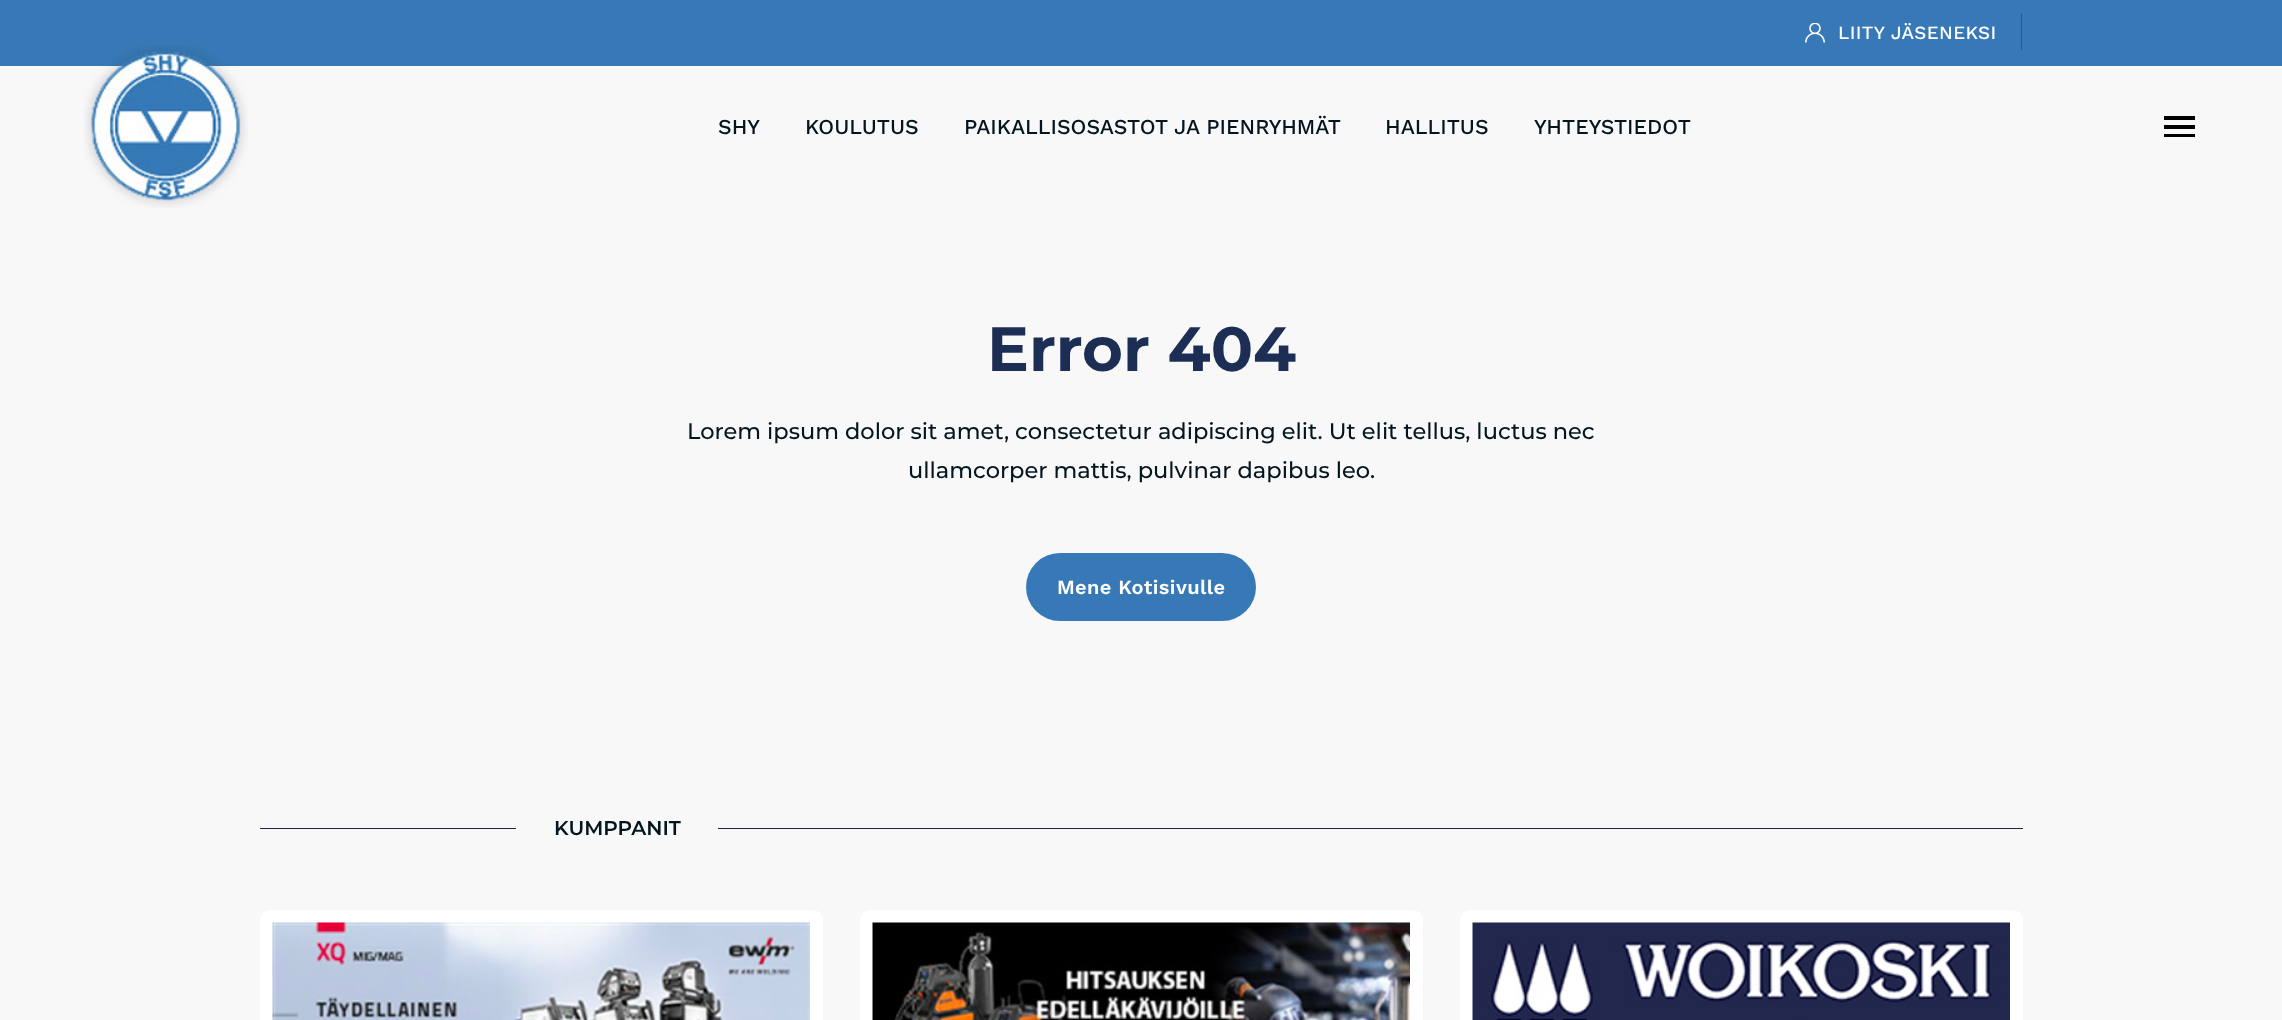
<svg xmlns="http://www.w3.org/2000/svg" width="2282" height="1020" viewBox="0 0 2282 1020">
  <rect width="100%" height="100%" fill="#f8f8f9"/>
  <rect x="0" y="0" width="2282" height="66" fill="#3679b6"/>
  <image x="1805" y="23" width="20" height="20" href="img1.png"/>
  <text x="1838" y="39" font-family="Work Sans" font-size="18.75" font-weight="500" letter-spacing="0.4" fill="#ffffff">LIITY JÄSENEKSI</text>
  <rect x="2021" y="13" width="1" height="37" fill="#3f5075"/>
  <image x="84" y="45" width="164" height="163" href="img2.png"/>
  <text x="718" y="134" font-family="Work Sans" font-size="21.25" font-weight="500" fill="#03151f">SHY</text>
  <text x="805" y="134" font-family="Work Sans" font-size="21.25" font-weight="500" fill="#03151f">KOULUTUS</text>
  <text x="964" y="134" font-family="Work Sans" font-size="21.25" font-weight="500" fill="#03151f">PAIKALLISOSASTOT JA PIENRYHMÄT</text>
  <text x="1385" y="134" font-family="Work Sans" font-size="21.25" font-weight="500" fill="#03151f">HALLITUS</text>
  <text x="1534" y="134" font-family="Work Sans" font-size="21.25" font-weight="500" fill="#03151f">YHTEYSTIEDOT</text>
  <rect x="2164" y="134" width="31" height="3" fill="#000000"/>
  <rect x="2164" y="125" width="31" height="4" fill="#000000"/>
  <rect x="2164" y="116" width="31" height="4" fill="#000000"/>
  <text x="987" y="371" font-family="Montserrat" font-size="62.5" font-weight="bold" fill="#1c2e54">Error 404</text>
  <text x="687" y="439" font-family="Montserrat" font-size="22.5" font-weight="500" fill="#03151f">Lorem ipsum dolor sit amet, consectetur adipiscing elit. Ut elit tellus, luctus nec</text>
  <text x="908" y="478" font-family="Montserrat" font-size="22.5" font-weight="500" fill="#03151f">ullamcorper mattis, pulvinar dapibus leo.</text>
  <rect x="1026" y="553" width="230" height="68" rx="34" fill="#3679b6"/>
  <text x="1057" y="594" font-family="Work Sans" font-size="20" font-weight="600" letter-spacing="0.4" fill="#ffffff">Mene Kotisivulle</text>
  <rect x="260" y="828" width="1763" height="1" fill="#1b2845"/>
  <rect x="516" y="828" width="202" height="1" fill="#f8f8f9"/>
  <text x="554" y="835" font-family="Montserrat" font-size="20" font-weight="600" fill="#03151f">KUMPPANIT</text>
  <rect x="260" y="910" width="563" height="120" rx="10" fill="#ffffff"/>
  <image x="272" y="922" width="538" height="98" href="img3.png"/>
  <rect x="860" y="910" width="563" height="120" rx="10" fill="#ffffff"/>
  <image x="872" y="922" width="538" height="98" href="img4.png"/>
  <rect x="1460" y="910" width="563" height="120" rx="10" fill="#ffffff"/>
  <image x="1472" y="922" width="538" height="98" href="img5.png"/>
</svg>
